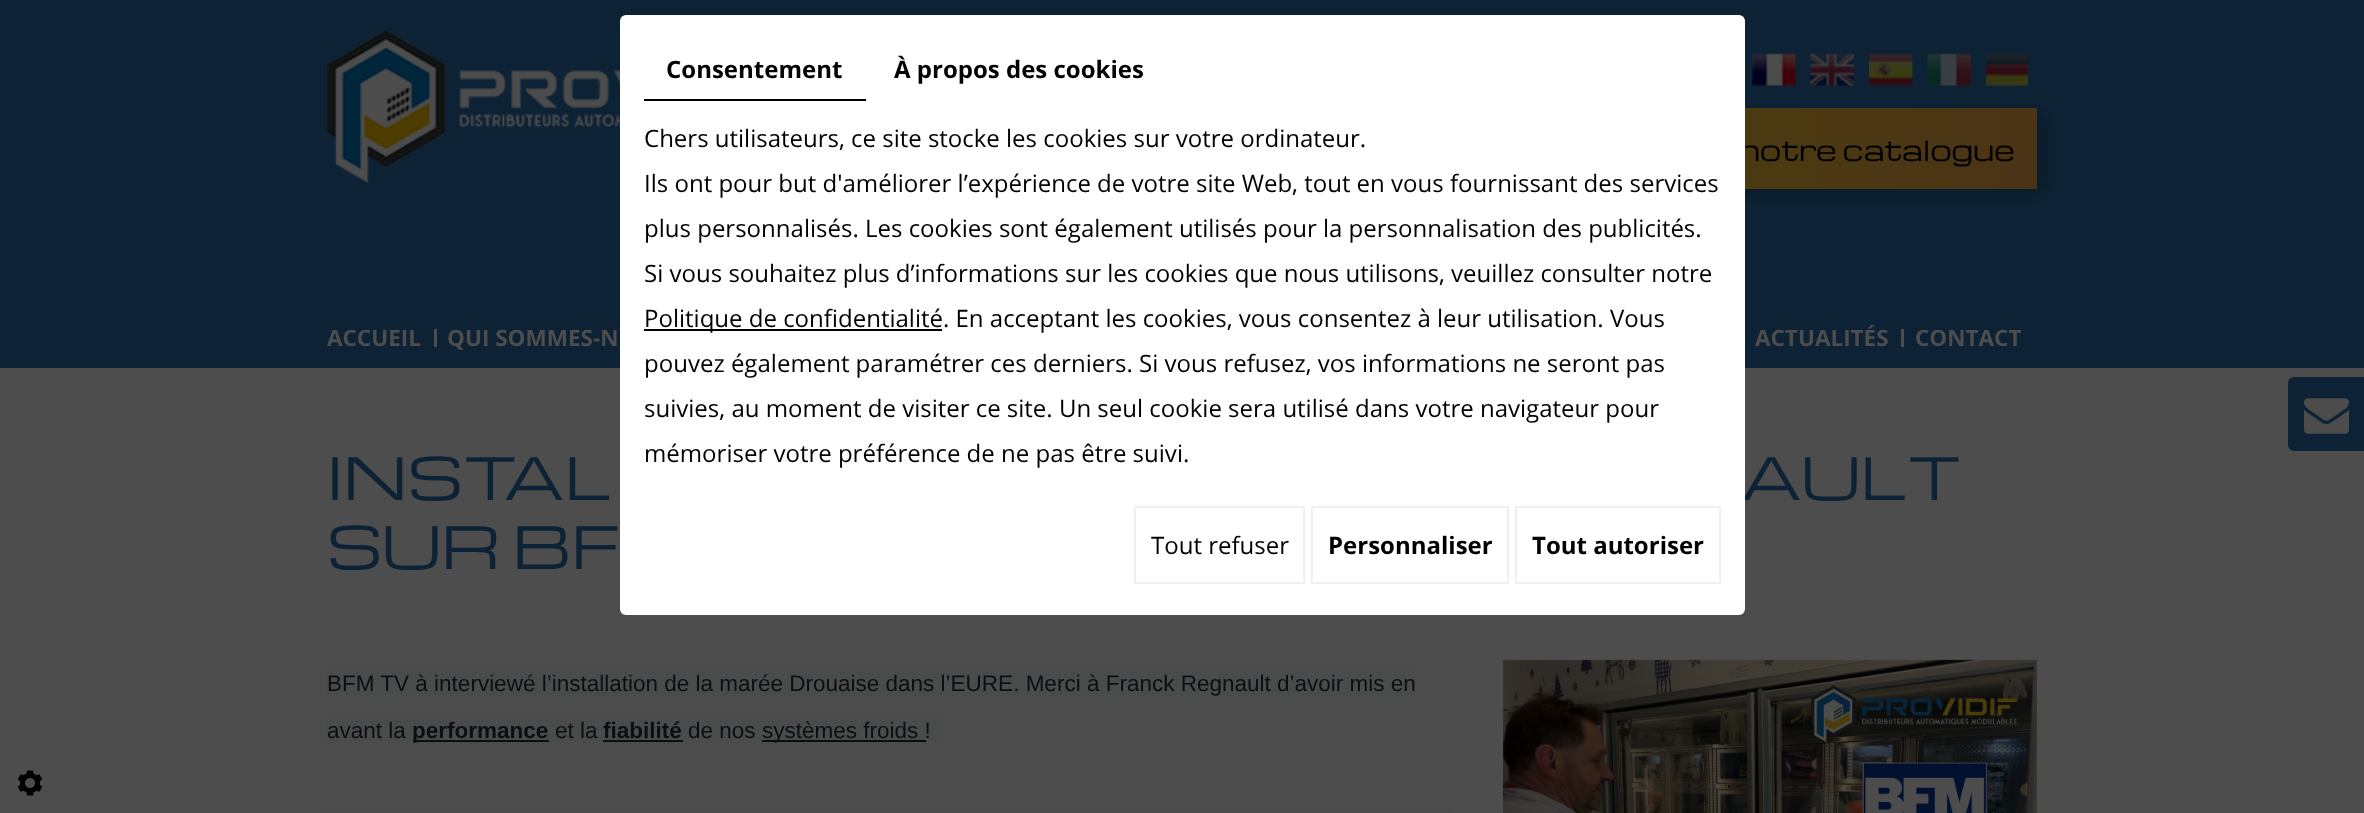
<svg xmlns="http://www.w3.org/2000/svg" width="2364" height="813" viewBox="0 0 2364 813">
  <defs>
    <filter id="blur1" x="-50%" y="-200%" width="200%" height="500%"><feGaussianBlur stdDeviation="10"/></filter>
    <linearGradient id="g1" gradientUnits="userSpaceOnUse" x1="1497" y1="149" x2="2037" y2="148"><stop offset="0" stop-color="#4b3f0c"/><stop offset="1" stop-color="#4b3416"/></linearGradient>
  </defs>
  <rect width="100%" height="100%" fill="#4d4d4d"/>
  <rect x="0" y="0" width="2364" height="368" fill="#0d2335"/>
  <rect x="1506" y="113" width="540" height="81" fill="#000000" fill-opacity="0.25" filter="url(#blur1)"/>
  <rect x="1745" y="108" width="292" height="81" fill="url(#g1)"/>
  <text x="1739" y="161" font-family="Michroma" font-size="27" fill="#000000">notre catalogue</text>
  <text x="1741" y="500" font-family="Michroma" font-size="57" fill="#0d2335">AULT</text>
  <rect x="620" y="15" width="1125" height="600" rx="6" fill="#ffffff"/>
  <rect x="644" y="99" width="222" height="2" fill="#000000"/>
  <text x="666" y="78" font-family="Open Sans" font-size="24" font-weight="bold" fill="#000000">Consentement</text>
  <text x="894" y="78" font-family="Open Sans" font-size="24" font-weight="bold" fill="#000000">À propos des cookies</text>
  <text x="644" y="147" font-family="Open Sans" font-size="24" fill="#000000">Chers utilisateurs, ce site stocke les cookies sur votre ordinateur.</text>
  <text x="644" y="192" font-family="Open Sans" font-size="24" fill="#000000">Ils ont pour but d'améliorer l’expérience de votre site Web, tout en vous fournissant des services</text>
  <text x="644" y="237" font-family="Open Sans" font-size="24" fill="#000000">plus personnalisés. Les cookies sont également utilisés pour la personnalisation des publicités.</text>
  <text x="644" y="282" font-family="Open Sans" font-size="24" fill="#000000">Si vous souhaitez plus d’informations sur les cookies que nous utilisons, veuillez consulter notre</text>
  <rect x="644" y="329" width="298" height="2" fill="#000000"/>
  <text x="644" y="327" font-family="Open Sans" font-size="24" fill="#000000">Politique de confidentialité. En acceptant les cookies, vous consentez à leur utilisation. Vous</text>
  <text x="644" y="372" font-family="Open Sans" font-size="24" fill="#000000">pouvez également paramétrer ces derniers. Si vous refusez, vos informations ne seront pas</text>
  <text x="644" y="417" font-family="Open Sans" font-size="24" fill="#000000">suivies, au moment de visiter ce site. Un seul cookie sera utilisé dans votre navigateur pour</text>
  <text x="644" y="462" font-family="Open Sans" font-size="24" fill="#000000">mémoriser votre préférence de ne pas être suivi.</text>
  <rect x="1135" y="507" width="169" height="76" fill="none" stroke="#f0f0f0" stroke-width="2"/>
  <text x="1151" y="554" font-family="Open Sans" font-size="24" fill="#000000">Tout refuser</text>
  <rect x="1312" y="507" width="196" height="76" fill="none" stroke="#f0f0f0" stroke-width="2"/>
  <text x="1328" y="554" font-family="Open Sans" font-size="24" font-weight="bold" fill="#000000">Personnaliser</text>
  <rect x="1516" y="507" width="204" height="76" fill="none" stroke="#f0f0f0" stroke-width="2"/>
  <text x="1532" y="554" font-family="Open Sans" font-size="24" font-weight="bold" fill="#000000">Tout autoriser</text>
  <image x="327" y="30" width="293" height="153" href="img1.png"/>
  <image x="1752" y="53" width="44" height="33" href="img2.png"/>
  <image x="1810" y="53" width="44" height="33" href="img3.png"/>
  <image x="1869" y="53" width="44" height="33" href="img4.png"/>
  <image x="1927" y="53" width="44" height="33" href="img5.png"/>
  <image x="1986" y="53" width="42" height="33" href="img6.png"/>
  <text x="327" y="346" font-family="Open Sans" font-size="22.5" font-weight="bold" fill="#4d4d4d">ACCUEIL</text>
  <rect x="434" y="329" width="3" height="18" fill="#4d4d4d"/>
  <text x="447" y="346" font-family="Open Sans" font-size="22.5" font-weight="bold" fill="#4d4d4d">QUI SOMMES-N</text>
  <text x="1755" y="346" font-family="Open Sans" font-size="22.5" font-weight="bold" fill="#4d4d4d">ACTUALITÉS</text>
  <rect x="1901" y="329" width="3" height="18" fill="#4d4d4d"/>
  <text x="1915" y="346" font-family="Open Sans" font-size="22.5" font-weight="bold" fill="#4d4d4d">CONTACT</text>
  <path d="M2294 376H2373V452H2294C2290 452 2287 449 2287 445V383C2287 379 2290 376 2294 376Z" fill="#0d2335" stroke="#4d4d4d" stroke-width="2"/>
  <image x="2304" y="398" width="45" height="36" href="img7.png"/>
  <text x="327" y="500" font-family="Michroma" font-size="57" fill="#0d2335">INSTAL</text>
  <text x="327" y="569" font-family="Michroma" font-size="57" fill="#0d2335">SUR BF</text>
  <rect x="327" y="671" width="1089" height="25" fill="#4a4b4b"/>
  <text x="327" y="691" font-family="Liberation Sans" font-size="22.5" fill="#0c0f12">BFM TV à interviewé l’installation de la marée Drouaise dans l’EURE. Merci à Franck Regnault d’avoir mis en</text>
  <rect x="327" y="717" width="617" height="26" fill="#4a4b4b"/>
  <text x="327" y="738" font-family="Liberation Sans" font-size="22.5" fill="#0c0f12">avant la</text>
  <rect x="413" y="740" width="136" height="2" fill="#0c0f12"/>
  <text x="412" y="738" font-family="Liberation Sans" font-size="22.5" font-weight="bold" fill="#0c0f12">performance</text>
  <text x="555" y="738" font-family="Liberation Sans" font-size="22.5" fill="#0c0f12">et la</text>
  <text x="603" y="738" font-family="Liberation Sans" font-size="22.5" font-weight="bold" fill="#0c0f12">fiabilité</text>
  <rect x="603" y="740" width="80" height="2" fill="#0c0f12"/>
  <text x="688" y="738" font-family="Liberation Sans" font-size="22.5" fill="#0c0f12">de nos</text>
  <rect x="762" y="740" width="164" height="2" fill="#0c0f12"/>
  <text x="762" y="738" font-family="Liberation Sans" font-size="22.5" fill="#0c0f12">systèmes froids !</text>
  <rect x="327" y="809" width="1127" height="4" fill="#4a4b4b"/>
  <image x="1503" y="659" width="534" height="154" href="img8.png"/>
  <image x="17" y="770" width="26" height="26" href="img9.png"/>
</svg>
